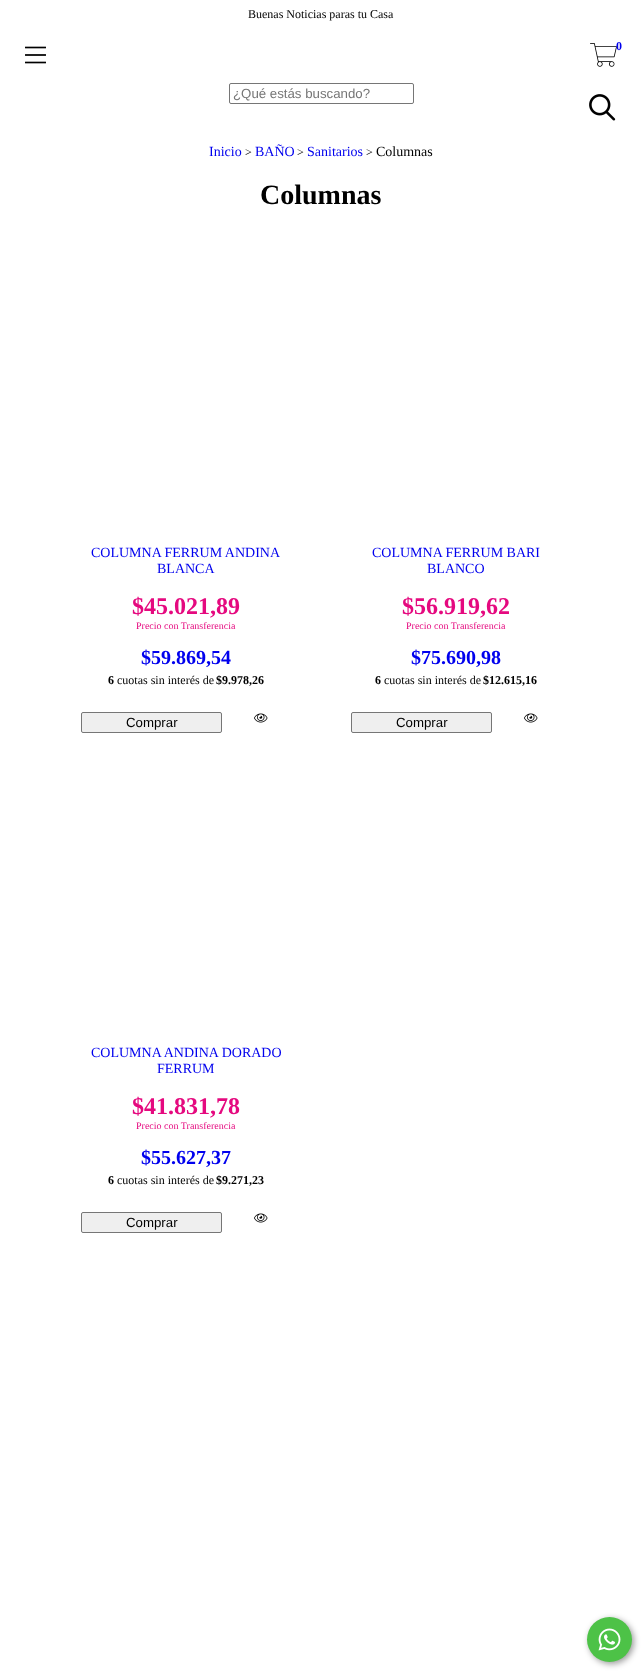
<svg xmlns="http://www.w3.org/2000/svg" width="642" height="1672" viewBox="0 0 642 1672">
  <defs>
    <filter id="blur1" x="-50%" y="-200%" width="200%" height="500%"><feGaussianBlur stdDeviation="3"/></filter>
  </defs>
  <rect width="100%" height="100%" fill="#ffffff"/>
  <text x="248" y="18" font-family="Liberation Serif" font-size="12" fill="#000000">Buenas Noticias paras tu Casa</text>
  <image x="25" y="46" width="21" height="18" href="img1.png"/>
  <image x="590" y="43" width="27" height="24" href="img2.png"/>
  <text x="616" y="50" font-family="Liberation Serif" font-size="12" font-weight="bold" fill="#0000ee">0</text>
  <rect x="229.5" y="83.5" width="184" height="20" rx="1.5" fill="none" stroke="#767676"/>
  <text x="233" y="98" font-family="Liberation Sans" font-size="13.25" fill="#757575">¿Qué estás buscando?</text>
  <image x="589" y="94" width="27" height="27" href="img3.png"/>
  <text x="209" y="156" font-family="Liberation Serif" font-size="14" fill="#0000ee">Inicio</text>
  <text x="245" y="156" font-family="Liberation Serif" font-size="12" fill="#000000">&gt;</text>
  <text x="255" y="156" font-family="Liberation Serif" font-size="14" fill="#0000ee">BAÑO</text>
  <text x="297" y="156" font-family="Liberation Serif" font-size="12" fill="#000000">&gt;</text>
  <text x="307" y="156" font-family="Liberation Serif" font-size="14" fill="#0000ee">Sanitarios</text>
  <text x="366" y="156" font-family="Liberation Serif" font-size="12" fill="#000000">&gt;</text>
  <text x="376" y="156" font-family="Liberation Serif" font-size="14" fill="#000000">Columnas</text>
  <text x="260" y="204" font-family="Liberation Serif" font-size="28" font-weight="bold" fill="#000000">Columnas</text>
  <text x="91" y="557" font-family="Liberation Serif" font-size="14" fill="#0000ee">COLUMNA FERRUM ANDINA</text>
  <text x="157" y="573" font-family="Liberation Serif" font-size="14" fill="#0000ee">BLANCA</text>
  <text x="132" y="614" font-family="Liberation Serif" font-size="24" font-weight="bold" fill="#e5097f">$45.021,89</text>
  <text x="136" y="629" font-family="Liberation Serif" font-size="10" fill="#e5097f">Precio con Transferencia</text>
  <text x="141" y="664" font-family="Liberation Serif" font-size="20" font-weight="bold" fill="#0000ee">$59.869,54</text>
  <text x="108" y="684" font-family="Liberation Serif" font-size="12" font-weight="bold" fill="#000000">6</text>
  <text x="117" y="684" font-family="Liberation Serif" font-size="12" fill="#000000">cuotas sin interés de</text>
  <text x="216" y="684" font-family="Liberation Serif" font-size="12" font-weight="bold" fill="#000000">$9.978,26</text>
  <rect x="81.5" y="712.5" width="140" height="20" rx="1.5" fill="#efefef" stroke="#767676"/>
  <text x="126" y="727" font-family="Liberation Sans" font-size="13.25" fill="#000000">Comprar</text>
  <image x="254" y="713" width="14" height="10" href="img4.png"/>
  <text x="372" y="557" font-family="Liberation Serif" font-size="14" fill="#0000ee">COLUMNA FERRUM BARI</text>
  <text x="427" y="573" font-family="Liberation Serif" font-size="14" fill="#0000ee">BLANCO</text>
  <text x="402" y="614" font-family="Liberation Serif" font-size="24" font-weight="bold" fill="#e5097f">$56.919,62</text>
  <text x="406" y="629" font-family="Liberation Serif" font-size="10" fill="#e5097f">Precio con Transferencia</text>
  <text x="411" y="664" font-family="Liberation Serif" font-size="20" font-weight="bold" fill="#0000ee">$75.690,98</text>
  <text x="375" y="684" font-family="Liberation Serif" font-size="12" font-weight="bold" fill="#000000">6</text>
  <text x="384" y="684" font-family="Liberation Serif" font-size="12" fill="#000000">cuotas sin interés de</text>
  <text x="483" y="684" font-family="Liberation Serif" font-size="12" font-weight="bold" fill="#000000">$12.615,16</text>
  <rect x="351.5" y="712.5" width="140" height="20" rx="1.5" fill="#efefef" stroke="#767676"/>
  <text x="396" y="727" font-family="Liberation Sans" font-size="13.25" fill="#000000">Comprar</text>
  <image x="524" y="713" width="14" height="10" href="img4.png"/>
  <text x="91" y="1057" font-family="Liberation Serif" font-size="14" fill="#0000ee">COLUMNA ANDINA DORADO</text>
  <text x="157" y="1073" font-family="Liberation Serif" font-size="14" fill="#0000ee">FERRUM</text>
  <text x="132" y="1114" font-family="Liberation Serif" font-size="24" font-weight="bold" fill="#e5097f">$41.831,78</text>
  <text x="136" y="1129" font-family="Liberation Serif" font-size="10" fill="#e5097f">Precio con Transferencia</text>
  <text x="141" y="1164" font-family="Liberation Serif" font-size="20" font-weight="bold" fill="#0000ee">$55.627,37</text>
  <text x="108" y="1184" font-family="Liberation Serif" font-size="12" font-weight="bold" fill="#000000">6</text>
  <text x="117" y="1184" font-family="Liberation Serif" font-size="12" fill="#000000">cuotas sin interés de</text>
  <text x="216" y="1184" font-family="Liberation Serif" font-size="12" font-weight="bold" fill="#000000">$9.271,23</text>
  <rect x="81.5" y="1212.5" width="140" height="20" rx="1.5" fill="#efefef" stroke="#767676"/>
  <text x="126" y="1227" font-family="Liberation Sans" font-size="13.25" fill="#000000">Comprar</text>
  <image x="254" y="1213" width="14" height="10" href="img4.png"/>
  <rect x="589" y="1619" width="45" height="45" rx="22.5" fill="#000000" fill-opacity="0.4" filter="url(#blur1)"/>
  <circle cx="609.5" cy="1639.5" r="22.5" fill="#4dc247"/>
  <image x="598" y="1628" width="23" height="23" href="img5.png"/>
</svg>
